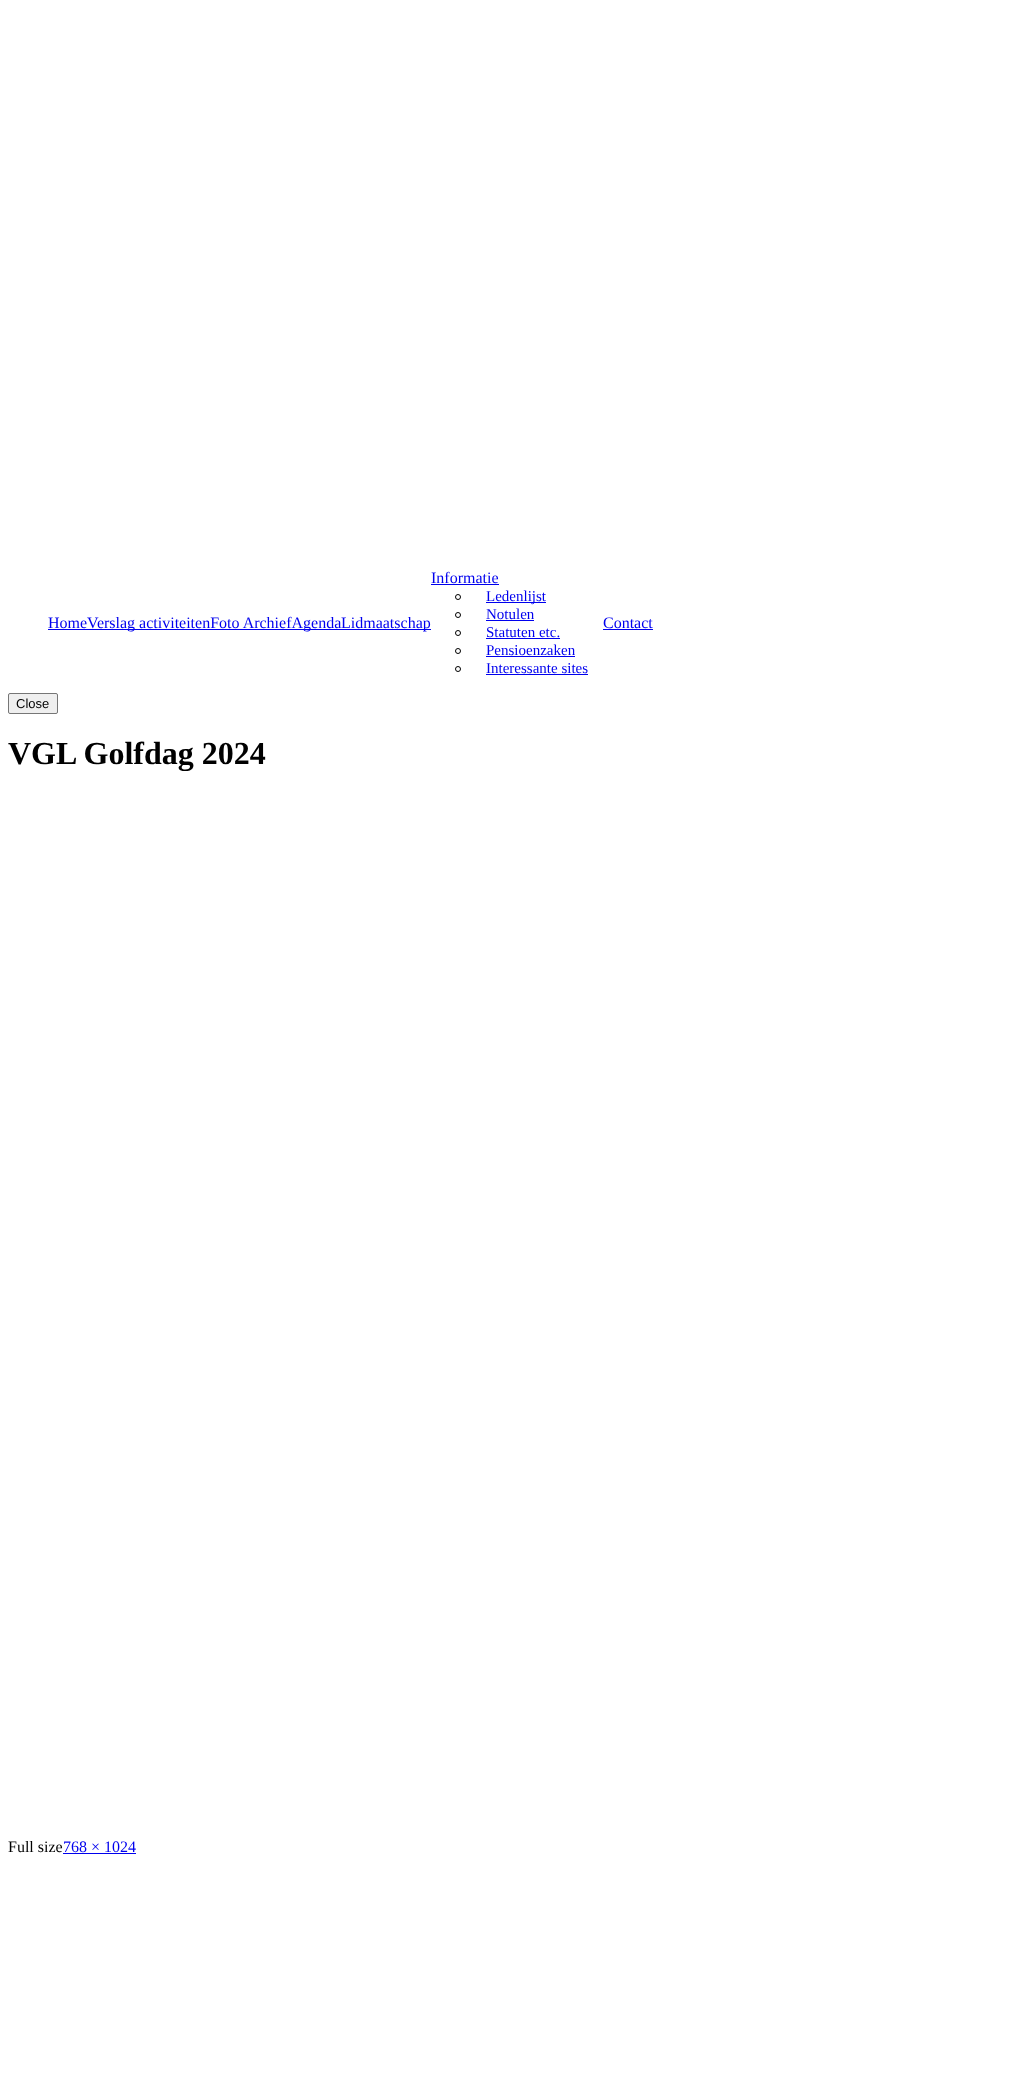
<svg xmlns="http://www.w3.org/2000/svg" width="1036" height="2093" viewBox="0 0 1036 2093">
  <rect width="100%" height="100%" fill="#ffffff"/>
  <rect x="48" y="629" width="293" height="1" fill="#0000ee"/>
  <text x="48" y="628" font-family="Liberation Serif" font-size="16" fill="#0000ee">HomeVerslag activiteitenFoto ArchiefAgenda</text>
  <rect x="341" y="629" width="90" height="1" fill="#0000ee"/>
  <text x="341" y="628" font-family="Liberation Serif" font-size="16" fill="#0000ee">Lidmaatschap</text>
  <text x="431" y="583" font-family="Liberation Serif" font-size="16" fill="#0000ee">Informatie</text>
  <rect x="431" y="584" width="68" height="1" fill="#0000ee"/>
  <circle cx="458" cy="597" r="2.5" fill="none" stroke="#000000"/>
  <rect x="486" y="602" width="60" height="1" fill="#0000ee"/>
  <text x="486" y="601" font-family="Liberation Serif" font-size="15" fill="#0000ee">Ledenlijst</text>
  <circle cx="458" cy="615" r="2.5" fill="none" stroke="#000000"/>
  <text x="486" y="619" font-family="Liberation Serif" font-size="15" fill="#0000ee">Notulen</text>
  <rect x="486" y="620" width="48" height="1" fill="#0000ee"/>
  <circle cx="458" cy="633" r="2.5" fill="none" stroke="#000000"/>
  <text x="486" y="637" font-family="Liberation Serif" font-size="15" fill="#0000ee">Statuten etc.</text>
  <rect x="486" y="638" width="74" height="1" fill="#0000ee"/>
  <circle cx="458" cy="651" r="2.5" fill="none" stroke="#000000"/>
  <text x="486" y="655" font-family="Liberation Serif" font-size="15" fill="#0000ee">Pensioenzaken</text>
  <rect x="486" y="656" width="89" height="1" fill="#0000ee"/>
  <circle cx="458" cy="669" r="2.5" fill="none" stroke="#000000"/>
  <text x="486" y="673" font-family="Liberation Serif" font-size="15" fill="#0000ee">Interessante sites</text>
  <rect x="486" y="674" width="102" height="1" fill="#0000ee"/>
  <text x="603" y="628" font-family="Liberation Serif" font-size="16" fill="#0000ee">Contact</text>
  <rect x="603" y="629" width="50" height="1" fill="#0000ee"/>
  <rect x="8.5" y="693.5" width="49" height="20" rx="1.5" fill="#efefef" stroke="#767676"/>
  <text x="16" y="708" font-family="Liberation Sans" font-size="13" fill="#000000">Close</text>
  <text x="8" y="764" font-family="Liberation Serif" font-size="32" font-weight="bold" fill="#000000">VGL Golfdag 2024</text>
  <text x="8" y="1852" font-family="Liberation Serif" font-size="16" fill="#000000">Full size</text>
  <text x="63" y="1852" font-family="Liberation Serif" font-size="16" fill="#0000ee">768 × 1024</text>
  <rect x="63" y="1853" width="73" height="1" fill="#0000ee"/>
</svg>
